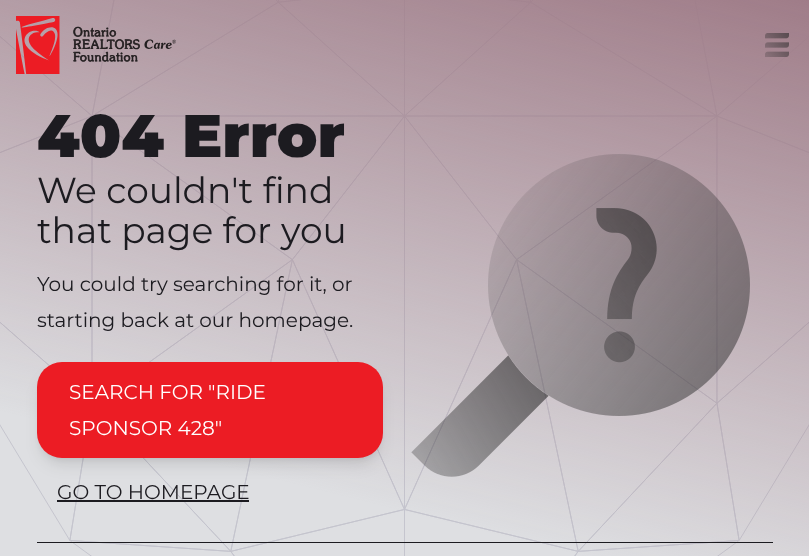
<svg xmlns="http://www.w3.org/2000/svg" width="809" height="556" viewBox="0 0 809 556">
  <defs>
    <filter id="blur1" x="-50%" y="-200%" width="200%" height="500%"><feGaussianBlur stdDeviation="3"/></filter>
    <filter id="blur2" x="-50%" y="-200%" width="200%" height="500%"><feGaussianBlur stdDeviation="7.5"/></filter>
  </defs>
  <rect width="100%" height="100%" fill="#dedfe2"/>
  <image x="0" y="0" width="809" height="556" href="img1.png"/>
  <image x="16" y="16" width="160" height="58" href="img2.png"/>
  <image x="765" y="33" width="24" height="24" href="img3.png"/>
  <text x="37" y="157" font-family="Montserrat" font-size="60" font-weight="900" fill="#1c1b20">404 Error</text>
  <text x="37" y="203" font-family="Montserrat" font-size="36" fill="#1c1b20">We couldn't find</text>
  <text x="37" y="243" font-family="Montserrat" font-size="36" fill="#1c1b20">that page for you</text>
  <text x="37" y="291" font-family="Montserrat" font-size="20" fill="#1c1b20">You could try searching for it, or</text>
  <text x="37" y="327" font-family="Montserrat" font-size="20" fill="#1c1b20">starting back at our homepage.</text>
  <rect x="41" y="370" width="338" height="88" rx="21" fill="#000000" fill-opacity="0.1" filter="url(#blur1)"/>
  <rect x="40" y="375" width="340" height="90" rx="22" fill="#000000" fill-opacity="0.1" filter="url(#blur2)"/>
  <rect x="37" y="362" width="346" height="96" rx="25" fill="#ec1c24"/>
  <text x="69" y="399" font-family="Montserrat" font-size="20" fill="#ffffff">SEARCH FOR "RIDE</text>
  <text x="69" y="435" font-family="Montserrat" font-size="20" fill="#ffffff">SPONSOR 428"</text>
  <text x="57" y="499" font-family="Montserrat" font-size="20" fill="#1c1b20">GO TO HOMEPAGE</text>
  <rect x="57" y="500" width="192" height="2" fill="#1c1b20"/>
  <image x="411" y="154" width="339" height="323" href="img4.png"/>
  <rect x="37" y="542" width="736" height="1" fill="#1c1b20"/>
</svg>
